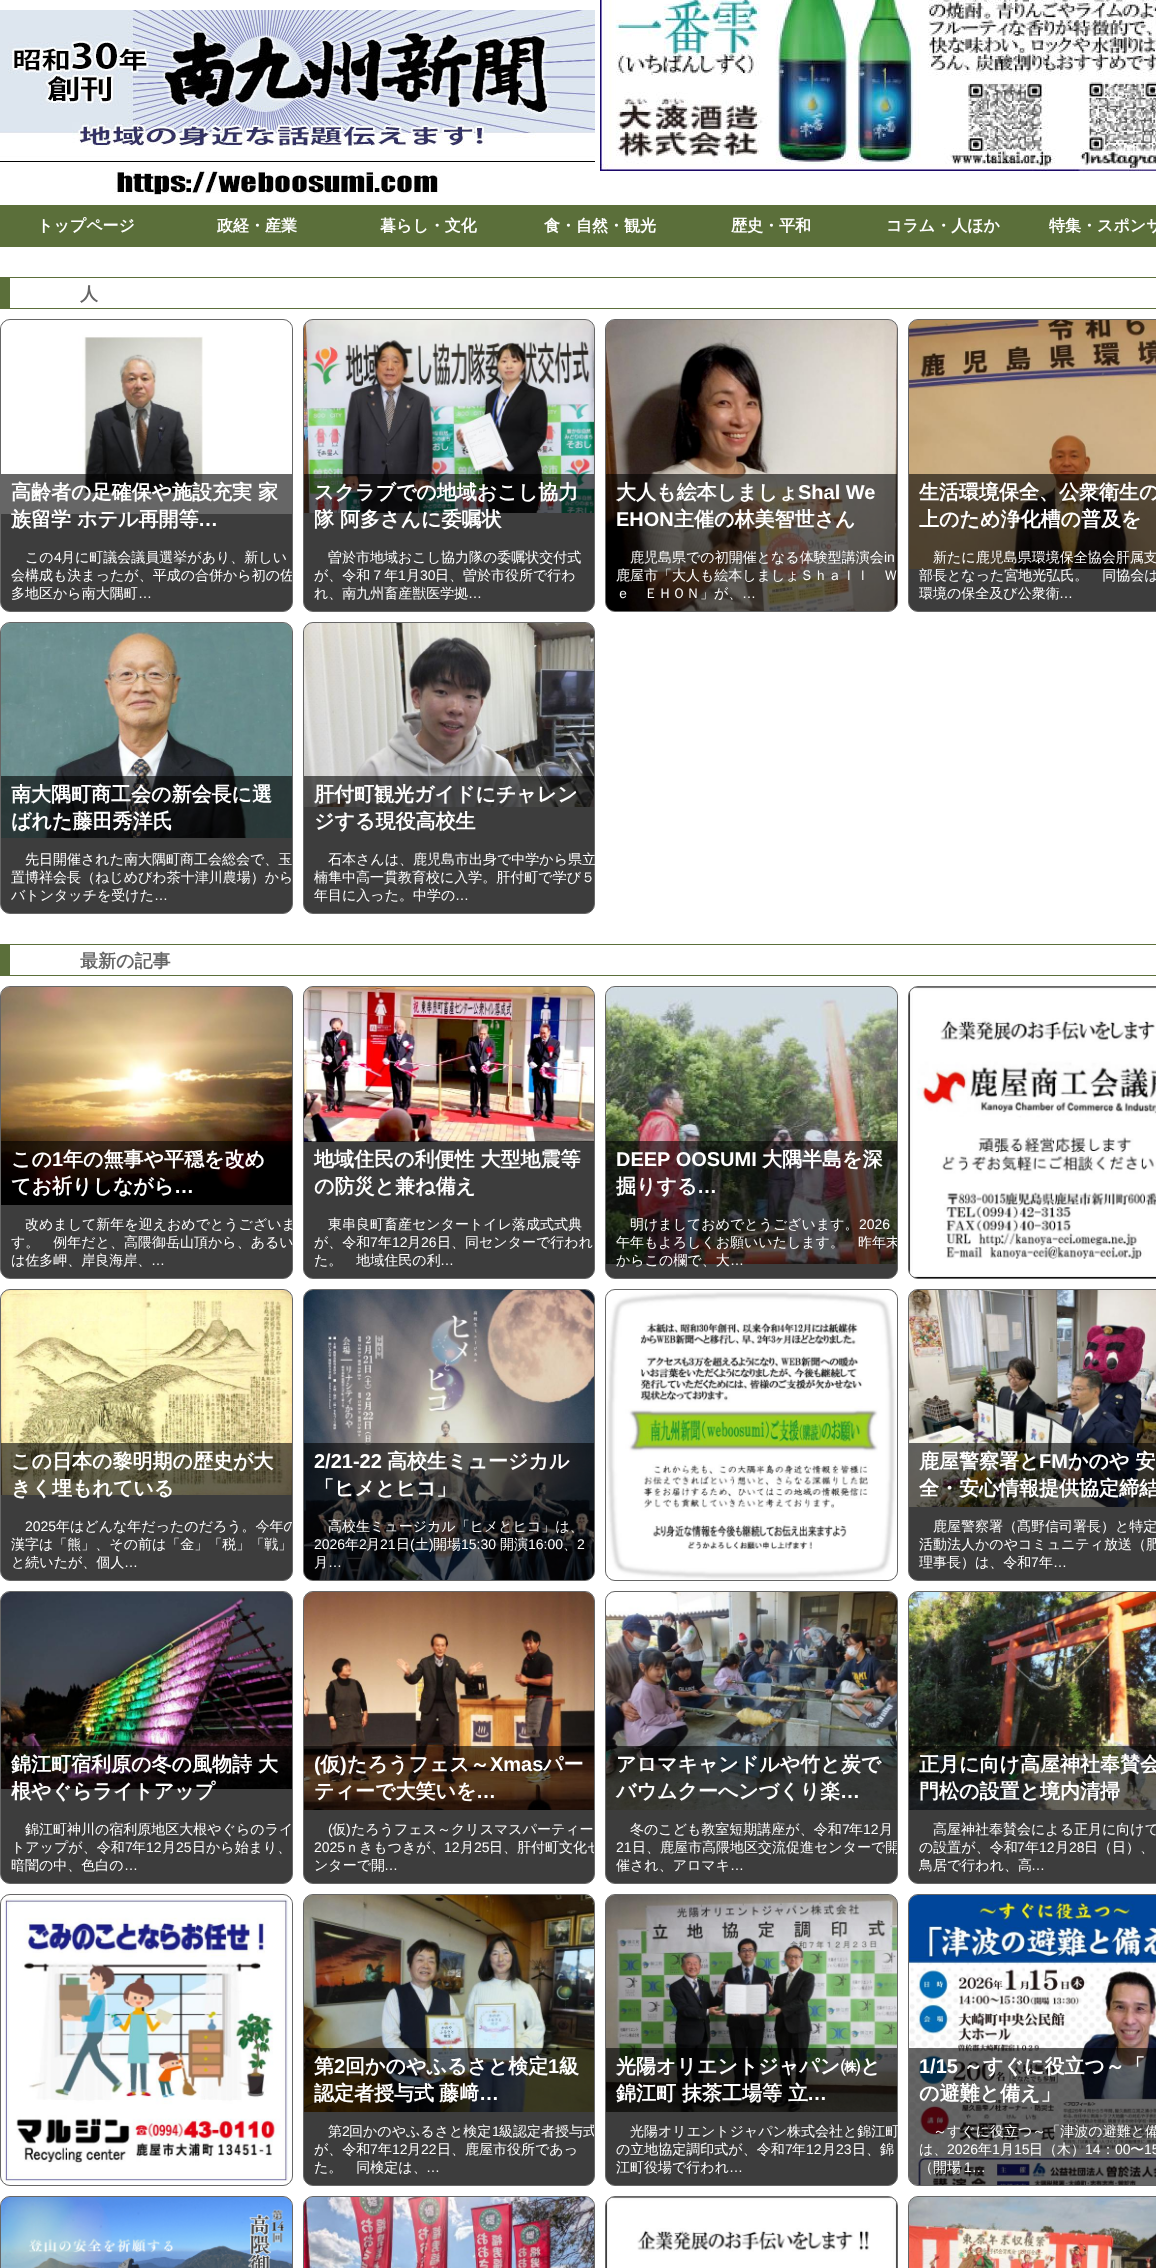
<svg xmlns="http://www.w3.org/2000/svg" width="1156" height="2268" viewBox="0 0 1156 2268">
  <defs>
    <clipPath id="clip1"><rect x="1" y="320" width="291" height="291" rx="9"/></clipPath>
    <clipPath id="clip2"><rect x="606" y="987" width="291" height="291" rx="9"/></clipPath>
    <clipPath id="clip3"><rect x="1" y="1290" width="291" height="290" rx="9"/></clipPath>
    <clipPath id="clip4"><rect x="304" y="1592" width="290" height="291" rx="9"/></clipPath>
    <clipPath id="clip5"><rect x="606" y="1592" width="291" height="291" rx="9"/></clipPath>
    <clipPath id="clip6"><rect x="304" y="1895" width="290" height="290" rx="9"/></clipPath>
  </defs>
  <rect width="100%" height="100%" fill="#ffffff"/>
  <image x="0" y="10" width="595" height="185" href="img1.png"/>
  <image x="600" y="0" width="556" height="171" href="img2.png"/>
  <rect x="0" y="205" width="1156" height="42" fill="#5b6f3a"/>
  <text x="37" y="231" font-family="WenQuanYi Zen Hei" font-size="16" font-weight="bold" fill="#ffffff">トップページ</text>
  <text x="217" y="231" font-family="WenQuanYi Zen Hei" font-size="16" font-weight="bold" fill="#ffffff">政経・産業</text>
  <text x="380" y="231" font-family="WenQuanYi Zen Hei" font-size="16" font-weight="bold" fill="#ffffff">暮らし・文化</text>
  <text x="544" y="231" font-family="WenQuanYi Zen Hei" font-size="16" font-weight="bold" fill="#ffffff">食・自然・観光</text>
  <text x="731" y="231" font-family="WenQuanYi Zen Hei" font-size="16" font-weight="bold" fill="#ffffff">歴史・平和</text>
  <text x="886" y="231" font-family="WenQuanYi Zen Hei" font-size="16" font-weight="bold" fill="#ffffff">コラム・人ほか</text>
  <text x="1049" y="231" font-family="WenQuanYi Zen Hei" font-size="16" font-weight="bold" fill="#ffffff">特集・スポンサ</text>
  <rect x="10" y="277" width="1146" height="1" fill="#5b6f3a"/>
  <rect x="10" y="308" width="1146" height="1" fill="#5b6f3a"/>
  <rect x="0" y="277" width="10" height="32" fill="#5b6f3a"/>
  <text x="80" y="300" font-family="WenQuanYi Zen Hei" font-size="18" font-weight="bold" fill="#666666">人</text>
  <rect x="0.5" y="319.5" width="292" height="292" rx="9.5" fill="#999999" stroke="#666666"/>
  <image x="1" y="320" width="291" height="194" href="img3.png"/>
  <path d="M1 474H292V602C292 607 288 611 283 611H10C5 611 1 607 1 602Z" fill="#000000" fill-opacity="0.6"/>
  <text x="11" y="499" font-family="WenQuanYi Zen Hei" font-size="20" font-weight="bold" fill="#ffffff">高齢者の足確保や施設充実 家</text>
  <text x="11" y="526" font-family="WenQuanYi Zen Hei" font-size="20" font-weight="bold" fill="#ffffff">族留学 ホテル再開等</text>
  <text x="198" y="526" font-family="Liberation Sans" font-size="20" font-weight="bold" fill="#ffffff">…</text>
  <text x="25" y="562" font-family="WenQuanYi Zen Hei" font-size="14" font-weight="500" fill="#ffffff">この</text>
  <text x="54" y="562" font-family="Liberation Sans" font-size="14" fill="#ffffff">4</text>
  <text x="61" y="562" font-family="WenQuanYi Zen Hei" font-size="14" font-weight="500" fill="#ffffff">月に町議会議員選挙があり、新しい</text>
  <g clip-path="url(#clip1)">
    <text x="11" y="580" font-family="WenQuanYi Zen Hei" font-size="14" font-weight="500" fill="#ffffff">会構成も決まったが、平成の合併から初の佐</text>
  </g>
  <text x="11" y="598" font-family="WenQuanYi Zen Hei" font-size="14" font-weight="500" fill="#ffffff">多地区から南大隅町</text>
  <text x="138" y="598" font-family="Liberation Sans" font-size="14" fill="#ffffff">…</text>
  <rect x="303.5" y="319.5" width="291" height="292" rx="9.5" fill="#999999" stroke="#666666"/>
  <image x="304" y="320" width="290" height="193" href="img4.png"/>
  <path d="M304 474H594V602C594 607 590 611 585 611H313C308 611 304 607 304 602Z" fill="#000000" fill-opacity="0.6"/>
  <text x="314" y="499" font-family="WenQuanYi Zen Hei" font-size="20" font-weight="bold" fill="#ffffff">スクラブでの地域おこし協力</text>
  <text x="314" y="526" font-family="WenQuanYi Zen Hei" font-size="20" font-weight="bold" fill="#ffffff">隊 阿多さんに委嘱状</text>
  <text x="328" y="562" font-family="WenQuanYi Zen Hei" font-size="14" font-weight="500" fill="#ffffff">曽於市地域おこし協力隊の委嘱状交付式</text>
  <text x="314" y="580" font-family="WenQuanYi Zen Hei" font-size="14" font-weight="500" fill="#ffffff">が、令和７年</text>
  <text x="398" y="580" font-family="Liberation Sans" font-size="14" fill="#ffffff">1</text>
  <text x="406" y="580" font-family="WenQuanYi Zen Hei" font-size="14" font-weight="500" fill="#ffffff">月</text>
  <text x="420" y="580" font-family="Liberation Sans" font-size="14" fill="#ffffff">30</text>
  <text x="435" y="580" font-family="WenQuanYi Zen Hei" font-size="14" font-weight="500" fill="#ffffff">日、曽於市役所で行わ</text>
  <text x="314" y="598" font-family="WenQuanYi Zen Hei" font-size="14" font-weight="500" fill="#ffffff">れ、南九州畜産獣医学拠</text>
  <text x="468" y="598" font-family="Liberation Sans" font-size="14" fill="#ffffff">…</text>
  <rect x="605.5" y="319.5" width="292" height="292" rx="9.5" fill="#999999" stroke="#666666"/>
  <image x="606" y="320" width="291" height="291" href="img5.png"/>
  <path d="M606 474H897V602C897 607 893 611 888 611H615C610 611 606 607 606 602Z" fill="#000000" fill-opacity="0.6"/>
  <text x="616" y="499" font-family="WenQuanYi Zen Hei" font-size="20" font-weight="bold" fill="#ffffff">大人も絵本しましょ</text>
  <text x="798" y="499" font-family="Liberation Sans" font-size="20" font-weight="bold" fill="#ffffff">Shal We</text>
  <text x="616" y="526" font-family="Liberation Sans" font-size="20" font-weight="bold" fill="#ffffff">EHON</text>
  <text x="674" y="526" font-family="WenQuanYi Zen Hei" font-size="20" font-weight="bold" fill="#ffffff">主催の林美智世さん</text>
  <text x="630" y="562" font-family="WenQuanYi Zen Hei" font-size="14" font-weight="500" fill="#ffffff">鹿児島県での初開催となる体験型講演会</text>
  <text x="884" y="562" font-family="Liberation Sans" font-size="14" fill="#ffffff">in</text>
  <text x="616" y="580" font-family="WenQuanYi Zen Hei" font-size="14" font-weight="500" fill="#ffffff">鹿屋市「大人も絵本しましょＳｈａｌｌ　Ｗ</text>
  <text x="616" y="598" font-family="WenQuanYi Zen Hei" font-size="14" font-weight="500" fill="#ffffff">ｅ　ＥＨＯＮ」が、</text>
  <text x="742" y="598" font-family="Liberation Sans" font-size="14" fill="#ffffff">…</text>
  <rect x="908.5" y="319.5" width="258" height="292" rx="9.5" fill="#999999" stroke="#666666"/>
  <image x="909" y="320" width="247" height="249" href="img6.png"/>
  <path d="M909 474H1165V602C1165 607 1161 611 1156 611H918C913 611 909 607 909 602Z" fill="#000000" fill-opacity="0.6"/>
  <text x="919" y="499" font-family="WenQuanYi Zen Hei" font-size="20" font-weight="bold" fill="#ffffff">生活環境保全、公衆衛生の</text>
  <text x="919" y="526" font-family="WenQuanYi Zen Hei" font-size="20" font-weight="bold" fill="#ffffff">上のため浄化槽の普及を</text>
  <text x="933" y="562" font-family="WenQuanYi Zen Hei" font-size="14" font-weight="500" fill="#ffffff">新たに鹿児島県環境保全協会肝属支</text>
  <text x="919" y="580" font-family="WenQuanYi Zen Hei" font-size="14" font-weight="500" fill="#ffffff">部長となった宮地光弘氏。　同協会は</text>
  <text x="919" y="598" font-family="WenQuanYi Zen Hei" font-size="14" font-weight="500" fill="#ffffff">環境の保全及び公衆衛</text>
  <text x="1059" y="598" font-family="Liberation Sans" font-size="14" fill="#ffffff">…</text>
  <rect x="0.5" y="622.5" width="292" height="291" rx="9.5" fill="#999999" stroke="#666666"/>
  <image x="1" y="623" width="291" height="215" href="img7.png"/>
  <path d="M1 776H292V904C292 909 288 913 283 913H10C5 913 1 909 1 904Z" fill="#000000" fill-opacity="0.6"/>
  <text x="11" y="801" font-family="WenQuanYi Zen Hei" font-size="20" font-weight="bold" fill="#ffffff">南大隅町商工会の新会長に選</text>
  <text x="11" y="828" font-family="WenQuanYi Zen Hei" font-size="20" font-weight="bold" fill="#ffffff">ばれた藤田秀洋氏</text>
  <text x="25" y="864" font-family="WenQuanYi Zen Hei" font-size="14" font-weight="500" fill="#ffffff">先日開催された南大隅町商工会総会で、玉</text>
  <text x="11" y="882" font-family="WenQuanYi Zen Hei" font-size="14" font-weight="500" fill="#ffffff">置博祥会長（ねじめびわ茶十津川農場）から</text>
  <text x="11" y="900" font-family="WenQuanYi Zen Hei" font-size="14" font-weight="500" fill="#ffffff">バトンタッチを受けた</text>
  <text x="154" y="900" font-family="Liberation Sans" font-size="14" fill="#ffffff">…</text>
  <rect x="303.5" y="622.5" width="291" height="291" rx="9.5" fill="#999999" stroke="#666666"/>
  <image x="304" y="623" width="290" height="184" href="img8.png"/>
  <path d="M304 776H594V904C594 909 590 913 585 913H313C308 913 304 909 304 904Z" fill="#000000" fill-opacity="0.6"/>
  <text x="314" y="801" font-family="WenQuanYi Zen Hei" font-size="20" font-weight="bold" fill="#ffffff">肝付町観光ガイドにチャレン</text>
  <text x="314" y="828" font-family="WenQuanYi Zen Hei" font-size="20" font-weight="bold" fill="#ffffff">ジする現役高校生</text>
  <text x="328" y="864" font-family="WenQuanYi Zen Hei" font-size="14" font-weight="500" fill="#ffffff">石本さんは、鹿児島市出身で中学から県立</text>
  <text x="314" y="882" font-family="WenQuanYi Zen Hei" font-size="14" font-weight="500" fill="#ffffff">楠隼中高一貫教育校に入学。肝付町で学び５</text>
  <text x="314" y="900" font-family="WenQuanYi Zen Hei" font-size="14" font-weight="500" fill="#ffffff">年目に入った。中学の</text>
  <text x="455" y="900" font-family="Liberation Sans" font-size="14" fill="#ffffff">…</text>
  <rect x="10" y="944" width="1146" height="1" fill="#5b6f3a"/>
  <rect x="10" y="975" width="1146" height="1" fill="#5b6f3a"/>
  <rect x="0" y="944" width="10" height="32" fill="#5b6f3a"/>
  <text x="80" y="967" font-family="WenQuanYi Zen Hei" font-size="18" font-weight="bold" fill="#666666">最新の記事</text>
  <rect x="0.5" y="986.5" width="292" height="292" rx="9.5" fill="#999999" stroke="#666666"/>
  <image x="1" y="987" width="291" height="218" href="img9.png"/>
  <path d="M1 1141H292V1269C292 1274 288 1278 283 1278H10C5 1278 1 1274 1 1269Z" fill="#000000" fill-opacity="0.6"/>
  <text x="11" y="1166" font-family="WenQuanYi Zen Hei" font-size="20" font-weight="bold" fill="#ffffff">この</text>
  <text x="52" y="1166" font-family="Liberation Sans" font-size="20" font-weight="bold" fill="#ffffff">1</text>
  <text x="63" y="1166" font-family="WenQuanYi Zen Hei" font-size="20" font-weight="bold" fill="#ffffff">年の無事や平穏を改め</text>
  <text x="11" y="1193" font-family="WenQuanYi Zen Hei" font-size="20" font-weight="bold" fill="#ffffff">てお祈りしながら</text>
  <text x="174" y="1193" font-family="Liberation Sans" font-size="20" font-weight="bold" fill="#ffffff">…</text>
  <text x="25" y="1229" font-family="WenQuanYi Zen Hei" font-size="14" font-weight="500" fill="#ffffff">改めまして新年を迎えおめでとうございま</text>
  <text x="11" y="1247" font-family="WenQuanYi Zen Hei" font-size="14" font-weight="500" fill="#ffffff">す。　例年だと、高隈御岳山頂から、あるい</text>
  <text x="11" y="1265" font-family="WenQuanYi Zen Hei" font-size="14" font-weight="500" fill="#ffffff">は佐多岬、岸良海岸、</text>
  <text x="151" y="1265" font-family="Liberation Sans" font-size="14" fill="#ffffff">…</text>
  <rect x="303.5" y="986.5" width="291" height="292" rx="9.5" fill="#999999" stroke="#666666"/>
  <image x="304" y="987" width="290" height="155" href="img10.png"/>
  <path d="M304 1141H594V1269C594 1274 590 1278 585 1278H313C308 1278 304 1274 304 1269Z" fill="#000000" fill-opacity="0.6"/>
  <text x="314" y="1166" font-family="WenQuanYi Zen Hei" font-size="20" font-weight="bold" fill="#ffffff">地域住民の利便性 大型地震等</text>
  <text x="314" y="1193" font-family="WenQuanYi Zen Hei" font-size="20" font-weight="bold" fill="#ffffff">の防災と兼ね備え</text>
  <text x="328" y="1229" font-family="WenQuanYi Zen Hei" font-size="14" font-weight="500" fill="#ffffff">東串良町畜産センタートイレ落成式式典</text>
  <text x="314" y="1247" font-family="WenQuanYi Zen Hei" font-size="14" font-weight="500" fill="#ffffff">が、令和</text>
  <text x="370" y="1247" font-family="Liberation Sans" font-size="14" fill="#ffffff">7</text>
  <text x="378" y="1247" font-family="WenQuanYi Zen Hei" font-size="14" font-weight="500" fill="#ffffff">年</text>
  <text x="392" y="1247" font-family="Liberation Sans" font-size="14" fill="#ffffff">12</text>
  <text x="407" y="1247" font-family="WenQuanYi Zen Hei" font-size="14" font-weight="500" fill="#ffffff">月</text>
  <text x="421" y="1247" font-family="Liberation Sans" font-size="14" fill="#ffffff">26</text>
  <text x="437" y="1247" font-family="WenQuanYi Zen Hei" font-size="14" font-weight="500" fill="#ffffff">日、同センターで行われ</text>
  <text x="314" y="1265" font-family="WenQuanYi Zen Hei" font-size="14" font-weight="500" fill="#ffffff">た。　地域住民の利</text>
  <text x="440" y="1265" font-family="Liberation Sans" font-size="14" fill="#ffffff">…</text>
  <rect x="605.5" y="986.5" width="292" height="292" rx="9.5" fill="#999999" stroke="#666666"/>
  <image x="606" y="987" width="291" height="277" href="img11.png"/>
  <path d="M606 1141H897V1269C897 1274 893 1278 888 1278H615C610 1278 606 1274 606 1269Z" fill="#000000" fill-opacity="0.6"/>
  <text x="616" y="1166" font-family="Liberation Sans" font-size="20" font-weight="bold" fill="#ffffff">DEEP OOSUMI</text>
  <text x="762" y="1166" font-family="WenQuanYi Zen Hei" font-size="20" font-weight="bold" fill="#ffffff">大隅半島を深</text>
  <text x="616" y="1193" font-family="WenQuanYi Zen Hei" font-size="20" font-weight="bold" fill="#ffffff">掘りする</text>
  <text x="697" y="1193" font-family="Liberation Sans" font-size="20" font-weight="bold" fill="#ffffff">…</text>
  <text x="630" y="1229" font-family="WenQuanYi Zen Hei" font-size="14" font-weight="500" fill="#ffffff">明けましておめでとうございます。</text>
  <text x="859" y="1229" font-family="Liberation Sans" font-size="14" fill="#ffffff">2026</text>
  <g clip-path="url(#clip2)">
    <text x="616" y="1247" font-family="WenQuanYi Zen Hei" font-size="14" font-weight="500" fill="#ffffff">午年もよろしくお願いいたします。　昨年末</text>
  </g>
  <text x="616" y="1265" font-family="WenQuanYi Zen Hei" font-size="14" font-weight="500" fill="#ffffff">からこの欄で、大</text>
  <text x="730" y="1265" font-family="Liberation Sans" font-size="14" fill="#ffffff">…</text>
  <rect x="908.5" y="986.5" width="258" height="292" rx="9.5" fill="#999999" stroke="#666666"/>
  <image x="909" y="987" width="247" height="291" href="img12.png"/>
  <rect x="0.5" y="1289.5" width="292" height="291" rx="9.5" fill="#999999" stroke="#666666"/>
  <image x="1" y="1290" width="291" height="205" href="img13.png"/>
  <path d="M1 1443H292V1571C292 1576 288 1580 283 1580H10C5 1580 1 1576 1 1571Z" fill="#000000" fill-opacity="0.6"/>
  <text x="11" y="1468" font-family="WenQuanYi Zen Hei" font-size="20" font-weight="bold" fill="#ffffff">この日本の黎明期の歴史が大</text>
  <text x="11" y="1495" font-family="WenQuanYi Zen Hei" font-size="20" font-weight="bold" fill="#ffffff">きく埋もれている</text>
  <text x="25" y="1531" font-family="Liberation Sans" font-size="14" fill="#ffffff">2025</text>
  <g clip-path="url(#clip3)">
    <text x="56" y="1531" font-family="WenQuanYi Zen Hei" font-size="14" font-weight="500" fill="#ffffff">年はどんな年だったのだろう。今年の</text>
  </g>
  <text x="11" y="1549" font-family="WenQuanYi Zen Hei" font-size="14" font-weight="500" fill="#ffffff">漢字は「熊」、その前は「金」「税」「戦」</text>
  <text x="11" y="1567" font-family="WenQuanYi Zen Hei" font-size="14" font-weight="500" fill="#ffffff">と続いたが、個人</text>
  <text x="124" y="1567" font-family="Liberation Sans" font-size="14" fill="#ffffff">…</text>
  <rect x="303.5" y="1289.5" width="291" height="291" rx="9.5" fill="#999999" stroke="#666666"/>
  <image x="304" y="1290" width="290" height="290" href="img14.png"/>
  <path d="M304 1443H594V1571C594 1576 590 1580 585 1580H313C308 1580 304 1576 304 1571Z" fill="#000000" fill-opacity="0.6"/>
  <text x="314" y="1468" font-family="Liberation Sans" font-size="20" font-weight="bold" fill="#ffffff">2/21-22</text>
  <text x="387" y="1468" font-family="WenQuanYi Zen Hei" font-size="20" font-weight="bold" fill="#ffffff">高校生ミュージカル</text>
  <text x="314" y="1495" font-family="WenQuanYi Zen Hei" font-size="20" font-weight="bold" fill="#ffffff">「ヒメとヒコ」</text>
  <text x="328" y="1531" font-family="WenQuanYi Zen Hei" font-size="14" font-weight="500" fill="#ffffff">高校生ミュージカル「ヒメとヒコ」は、</text>
  <text x="314" y="1549" font-family="Liberation Sans" font-size="14" fill="#ffffff">2026</text>
  <text x="345" y="1549" font-family="WenQuanYi Zen Hei" font-size="14" font-weight="500" fill="#ffffff">年</text>
  <text x="359" y="1549" font-family="Liberation Sans" font-size="14" fill="#ffffff">2</text>
  <text x="366" y="1549" font-family="WenQuanYi Zen Hei" font-size="14" font-weight="500" fill="#ffffff">月</text>
  <text x="380" y="1549" font-family="Liberation Sans" font-size="14" fill="#ffffff">21</text>
  <text x="396" y="1549" font-family="WenQuanYi Zen Hei" font-size="14" font-weight="500" fill="#ffffff">日</text>
  <text x="410" y="1549" font-family="Liberation Sans" font-size="14" fill="#ffffff">(</text>
  <text x="415" y="1549" font-family="WenQuanYi Zen Hei" font-size="14" font-weight="500" fill="#ffffff">土</text>
  <text x="429" y="1549" font-family="Liberation Sans" font-size="14" fill="#ffffff">)</text>
  <text x="433" y="1549" font-family="WenQuanYi Zen Hei" font-size="14" font-weight="500" fill="#ffffff">開場</text>
  <text x="461" y="1549" font-family="Liberation Sans" font-size="14" fill="#ffffff">15:30</text>
  <text x="500" y="1549" font-family="WenQuanYi Zen Hei" font-size="14" font-weight="500" fill="#ffffff">開演</text>
  <text x="528" y="1549" font-family="Liberation Sans" font-size="14" fill="#ffffff">16:00</text>
  <text x="563" y="1549" font-family="WenQuanYi Zen Hei" font-size="14" font-weight="500" fill="#ffffff">、</text>
  <text x="577" y="1549" font-family="Liberation Sans" font-size="14" fill="#ffffff">2</text>
  <text x="314" y="1567" font-family="WenQuanYi Zen Hei" font-size="14" font-weight="500" fill="#ffffff">月</text>
  <text x="328" y="1567" font-family="Liberation Sans" font-size="14" fill="#ffffff">…</text>
  <rect x="605.5" y="1289.5" width="292" height="291" rx="9.5" fill="#999999" stroke="#666666"/>
  <image x="606" y="1290" width="291" height="290" href="img15.png"/>
  <rect x="908.5" y="1289.5" width="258" height="291" rx="9.5" fill="#999999" stroke="#666666"/>
  <image x="909" y="1290" width="247" height="217" href="img16.png"/>
  <path d="M909 1443H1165V1571C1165 1576 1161 1580 1156 1580H918C913 1580 909 1576 909 1571Z" fill="#000000" fill-opacity="0.6"/>
  <text x="919" y="1468" font-family="WenQuanYi Zen Hei" font-size="20" font-weight="bold" fill="#ffffff">鹿屋警察署と</text>
  <text x="1039" y="1468" font-family="Liberation Sans" font-size="20" font-weight="bold" fill="#ffffff">FM</text>
  <text x="1068" y="1468" font-family="WenQuanYi Zen Hei" font-size="20" font-weight="bold" fill="#ffffff">かのや 安</text>
  <text x="919" y="1495" font-family="WenQuanYi Zen Hei" font-size="20" font-weight="bold" fill="#ffffff">全・安心情報提供協定締結</text>
  <text x="933" y="1531" font-family="WenQuanYi Zen Hei" font-size="14" font-weight="500" fill="#ffffff">鹿屋警察署（髙野信司署長）と特定</text>
  <text x="919" y="1549" font-family="WenQuanYi Zen Hei" font-size="14" font-weight="500" fill="#ffffff">活動法人かのやコミュニティ放送（肥</text>
  <text x="919" y="1567" font-family="WenQuanYi Zen Hei" font-size="14" font-weight="500" fill="#ffffff">理事長）は、令和</text>
  <text x="1031" y="1567" font-family="Liberation Sans" font-size="14" fill="#ffffff">7</text>
  <text x="1039" y="1567" font-family="WenQuanYi Zen Hei" font-size="14" font-weight="500" fill="#ffffff">年</text>
  <text x="1053" y="1567" font-family="Liberation Sans" font-size="14" fill="#ffffff">…</text>
  <rect x="0.5" y="1591.5" width="292" height="292" rx="9.5" fill="#999999" stroke="#666666"/>
  <image x="1" y="1592" width="291" height="197" href="img17.png"/>
  <path d="M1 1746H292V1874C292 1879 288 1883 283 1883H10C5 1883 1 1879 1 1874Z" fill="#000000" fill-opacity="0.6"/>
  <text x="11" y="1771" font-family="WenQuanYi Zen Hei" font-size="20" font-weight="bold" fill="#ffffff">錦江町宿利原の冬の風物詩 大</text>
  <text x="11" y="1798" font-family="WenQuanYi Zen Hei" font-size="20" font-weight="bold" fill="#ffffff">根やぐらライトアップ</text>
  <text x="25" y="1834" font-family="WenQuanYi Zen Hei" font-size="14" font-weight="500" fill="#ffffff">錦江町神川の宿利原地区大根やぐらのライ</text>
  <text x="11" y="1852" font-family="WenQuanYi Zen Hei" font-size="14" font-weight="500" fill="#ffffff">トアップが、令和</text>
  <text x="125" y="1852" font-family="Liberation Sans" font-size="14" fill="#ffffff">7</text>
  <text x="132" y="1852" font-family="WenQuanYi Zen Hei" font-size="14" font-weight="500" fill="#ffffff">年</text>
  <text x="146" y="1852" font-family="Liberation Sans" font-size="14" fill="#ffffff">12</text>
  <text x="162" y="1852" font-family="WenQuanYi Zen Hei" font-size="14" font-weight="500" fill="#ffffff">月</text>
  <text x="176" y="1852" font-family="Liberation Sans" font-size="14" fill="#ffffff">25</text>
  <text x="192" y="1852" font-family="WenQuanYi Zen Hei" font-size="14" font-weight="500" fill="#ffffff">日から始まり、</text>
  <text x="11" y="1870" font-family="WenQuanYi Zen Hei" font-size="14" font-weight="500" fill="#ffffff">暗闇の中、色白の</text>
  <text x="124" y="1870" font-family="Liberation Sans" font-size="14" fill="#ffffff">…</text>
  <rect x="303.5" y="1591.5" width="291" height="292" rx="9.5" fill="#999999" stroke="#666666"/>
  <image x="304" y="1592" width="290" height="218" href="img18.png"/>
  <path d="M304 1746H594V1874C594 1879 590 1883 585 1883H313C308 1883 304 1879 304 1874Z" fill="#000000" fill-opacity="0.6"/>
  <text x="314" y="1771" font-family="Liberation Sans" font-size="20" font-weight="bold" fill="#ffffff">(</text>
  <text x="320" y="1771" font-family="WenQuanYi Zen Hei" font-size="20" font-weight="bold" fill="#ffffff">仮</text>
  <text x="340" y="1771" font-family="Liberation Sans" font-size="20" font-weight="bold" fill="#ffffff">)</text>
  <text x="347" y="1771" font-family="WenQuanYi Zen Hei" font-size="20" font-weight="bold" fill="#ffffff">たろうフェス～</text>
  <text x="490" y="1771" font-family="Liberation Sans" font-size="20" font-weight="bold" fill="#ffffff">Xmas</text>
  <text x="543" y="1771" font-family="WenQuanYi Zen Hei" font-size="20" font-weight="bold" fill="#ffffff">パー</text>
  <text x="314" y="1798" font-family="WenQuanYi Zen Hei" font-size="20" font-weight="bold" fill="#ffffff">ティーで大笑いを</text>
  <text x="476" y="1798" font-family="Liberation Sans" font-size="20" font-weight="bold" fill="#ffffff">…</text>
  <text x="328" y="1834" font-family="Liberation Sans" font-size="14" fill="#ffffff">(</text>
  <text x="332" y="1834" font-family="WenQuanYi Zen Hei" font-size="14" font-weight="500" fill="#ffffff">仮</text>
  <text x="346" y="1834" font-family="Liberation Sans" font-size="14" fill="#ffffff">)</text>
  <text x="351" y="1834" font-family="WenQuanYi Zen Hei" font-size="14" font-weight="500" fill="#ffffff">たろうフェス～クリスマスパーティー</text>
  <text x="314" y="1852" font-family="Liberation Sans" font-size="14" fill="#ffffff">2025</text>
  <text x="345" y="1852" font-family="WenQuanYi Zen Hei" font-size="14" font-weight="500" fill="#ffffff">ｎきもつきが、</text>
  <text x="444" y="1852" font-family="Liberation Sans" font-size="14" fill="#ffffff">12</text>
  <text x="460" y="1852" font-family="WenQuanYi Zen Hei" font-size="14" font-weight="500" fill="#ffffff">月</text>
  <text x="474" y="1852" font-family="Liberation Sans" font-size="14" fill="#ffffff">25</text>
  <g clip-path="url(#clip4)">
    <text x="489" y="1852" font-family="WenQuanYi Zen Hei" font-size="14" font-weight="500" fill="#ffffff">日、肝付町文化セ</text>
  </g>
  <text x="314" y="1870" font-family="WenQuanYi Zen Hei" font-size="14" font-weight="500" fill="#ffffff">ンターで開</text>
  <text x="384" y="1870" font-family="Liberation Sans" font-size="14" fill="#ffffff">…</text>
  <rect x="605.5" y="1591.5" width="292" height="292" rx="9.5" fill="#999999" stroke="#666666"/>
  <image x="606" y="1592" width="291" height="218" href="img19.png"/>
  <path d="M606 1746H897V1874C897 1879 893 1883 888 1883H615C610 1883 606 1879 606 1874Z" fill="#000000" fill-opacity="0.6"/>
  <text x="616" y="1771" font-family="WenQuanYi Zen Hei" font-size="20" font-weight="bold" fill="#ffffff">アロマキャンドルや竹と炭で</text>
  <text x="616" y="1798" font-family="WenQuanYi Zen Hei" font-size="20" font-weight="bold" fill="#ffffff">バウムクーへンづくり楽</text>
  <text x="840" y="1798" font-family="Liberation Sans" font-size="20" font-weight="bold" fill="#ffffff">…</text>
  <text x="630" y="1834" font-family="WenQuanYi Zen Hei" font-size="14" font-weight="500" fill="#ffffff">冬のこども教室短期講座が、令和</text>
  <text x="842" y="1834" font-family="Liberation Sans" font-size="14" fill="#ffffff">7</text>
  <text x="849" y="1834" font-family="WenQuanYi Zen Hei" font-size="14" font-weight="500" fill="#ffffff">年</text>
  <text x="863" y="1834" font-family="Liberation Sans" font-size="14" fill="#ffffff">12</text>
  <text x="879" y="1834" font-family="WenQuanYi Zen Hei" font-size="14" font-weight="500" fill="#ffffff">月</text>
  <text x="616" y="1852" font-family="Liberation Sans" font-size="14" fill="#ffffff">21</text>
  <g clip-path="url(#clip5)">
    <text x="632" y="1852" font-family="WenQuanYi Zen Hei" font-size="14" font-weight="500" fill="#ffffff">日、鹿屋市高隈地区交流促進センターで開</text>
  </g>
  <text x="616" y="1870" font-family="WenQuanYi Zen Hei" font-size="14" font-weight="500" fill="#ffffff">催され、アロマキ</text>
  <text x="730" y="1870" font-family="Liberation Sans" font-size="14" fill="#ffffff">…</text>
  <rect x="908.5" y="1591.5" width="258" height="292" rx="9.5" fill="#999999" stroke="#666666"/>
  <image x="909" y="1592" width="247" height="218" href="img20.png"/>
  <path d="M909 1746H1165V1874C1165 1879 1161 1883 1156 1883H918C913 1883 909 1879 909 1874Z" fill="#000000" fill-opacity="0.6"/>
  <text x="919" y="1771" font-family="WenQuanYi Zen Hei" font-size="20" font-weight="bold" fill="#ffffff">正月に向け高屋神社奉賛会</text>
  <text x="919" y="1798" font-family="WenQuanYi Zen Hei" font-size="20" font-weight="bold" fill="#ffffff">門松の設置と境内清掃</text>
  <text x="933" y="1834" font-family="WenQuanYi Zen Hei" font-size="14" font-weight="500" fill="#ffffff">高屋神社奉賛会による正月に向けて</text>
  <text x="919" y="1852" font-family="WenQuanYi Zen Hei" font-size="14" font-weight="500" fill="#ffffff">の設置が、令和</text>
  <text x="1017" y="1852" font-family="Liberation Sans" font-size="14" fill="#ffffff">7</text>
  <text x="1025" y="1852" font-family="WenQuanYi Zen Hei" font-size="14" font-weight="500" fill="#ffffff">年</text>
  <text x="1039" y="1852" font-family="Liberation Sans" font-size="14" fill="#ffffff">12</text>
  <text x="1055" y="1852" font-family="WenQuanYi Zen Hei" font-size="14" font-weight="500" fill="#ffffff">月</text>
  <text x="1069" y="1852" font-family="Liberation Sans" font-size="14" fill="#ffffff">28</text>
  <text x="1084" y="1852" font-family="WenQuanYi Zen Hei" font-size="14" font-weight="500" fill="#ffffff">日（日）、</text>
  <text x="919" y="1870" font-family="WenQuanYi Zen Hei" font-size="14" font-weight="500" fill="#ffffff">鳥居で行われ、高</text>
  <text x="1031" y="1870" font-family="Liberation Sans" font-size="14" fill="#ffffff">…</text>
  <rect x="0.5" y="1894.5" width="292" height="291" rx="9.5" fill="#999999" stroke="#666666"/>
  <image x="1" y="1895" width="291" height="290" href="img21.png"/>
  <rect x="303.5" y="1894.5" width="291" height="291" rx="9.5" fill="#999999" stroke="#666666"/>
  <image x="304" y="1895" width="290" height="217" href="img22.png"/>
  <path d="M304 2048H594V2176C594 2181 590 2185 585 2185H313C308 2185 304 2181 304 2176Z" fill="#000000" fill-opacity="0.6"/>
  <text x="314" y="2073" font-family="WenQuanYi Zen Hei" font-size="20" font-weight="bold" fill="#ffffff">第</text>
  <text x="334" y="2073" font-family="Liberation Sans" font-size="20" font-weight="bold" fill="#ffffff">2</text>
  <text x="345" y="2073" font-family="WenQuanYi Zen Hei" font-size="20" font-weight="bold" fill="#ffffff">回かのやふるさと検定</text>
  <text x="548" y="2073" font-family="Liberation Sans" font-size="20" font-weight="bold" fill="#ffffff">1</text>
  <text x="559" y="2073" font-family="WenQuanYi Zen Hei" font-size="20" font-weight="bold" fill="#ffffff">級</text>
  <text x="314" y="2100" font-family="WenQuanYi Zen Hei" font-size="20" font-weight="bold" fill="#ffffff">認定者授与式</text>
  <text x="439" y="2100" font-family="WenQuanYi Zen Hei" font-size="20" font-weight="bold" fill="#ffffff">藤</text>
  <text x="459" y="2100" font-family="IPAPGothic" font-size="20" font-weight="bold" fill="#ffffff">﨑</text>
  <text x="479" y="2100" font-family="Liberation Sans" font-size="20" font-weight="bold" fill="#ffffff">…</text>
  <text x="328" y="2136" font-family="WenQuanYi Zen Hei" font-size="14" font-weight="500" fill="#ffffff">第</text>
  <text x="342" y="2136" font-family="Liberation Sans" font-size="14" fill="#ffffff">2</text>
  <text x="349" y="2136" font-family="WenQuanYi Zen Hei" font-size="14" font-weight="500" fill="#ffffff">回かのやふるさと検定</text>
  <text x="492" y="2136" font-family="Liberation Sans" font-size="14" fill="#ffffff">1</text>
  <g clip-path="url(#clip6)">
    <text x="499" y="2136" font-family="WenQuanYi Zen Hei" font-size="14" font-weight="500" fill="#ffffff">級認定者授与式</text>
  </g>
  <text x="314" y="2154" font-family="WenQuanYi Zen Hei" font-size="14" font-weight="500" fill="#ffffff">が、令和</text>
  <text x="370" y="2154" font-family="Liberation Sans" font-size="14" fill="#ffffff">7</text>
  <text x="378" y="2154" font-family="WenQuanYi Zen Hei" font-size="14" font-weight="500" fill="#ffffff">年</text>
  <text x="392" y="2154" font-family="Liberation Sans" font-size="14" fill="#ffffff">12</text>
  <text x="407" y="2154" font-family="WenQuanYi Zen Hei" font-size="14" font-weight="500" fill="#ffffff">月</text>
  <text x="421" y="2154" font-family="Liberation Sans" font-size="14" fill="#ffffff">22</text>
  <text x="437" y="2154" font-family="WenQuanYi Zen Hei" font-size="14" font-weight="500" fill="#ffffff">日、鹿屋市役所であっ</text>
  <text x="314" y="2172" font-family="WenQuanYi Zen Hei" font-size="14" font-weight="500" fill="#ffffff">た。　同検定は、</text>
  <text x="426" y="2172" font-family="Liberation Sans" font-size="14" fill="#ffffff">…</text>
  <rect x="605.5" y="1894.5" width="292" height="291" rx="9.5" fill="#999999" stroke="#666666"/>
  <image x="606" y="1895" width="291" height="217" href="img23.png"/>
  <path d="M606 2048H897V2176C897 2181 893 2185 888 2185H615C610 2185 606 2181 606 2176Z" fill="#000000" fill-opacity="0.6"/>
  <text x="616" y="2073" font-family="WenQuanYi Zen Hei" font-size="20" font-weight="bold" fill="#ffffff">光陽オリエントジャパン㈱と</text>
  <text x="616" y="2100" font-family="WenQuanYi Zen Hei" font-size="20" font-weight="bold" fill="#ffffff">錦江町 抹茶工場等 立</text>
  <text x="807" y="2100" font-family="Liberation Sans" font-size="20" font-weight="bold" fill="#ffffff">…</text>
  <text x="630" y="2136" font-family="WenQuanYi Zen Hei" font-size="14" font-weight="500" fill="#ffffff">光陽オリエントジャパン株式会社と錦江町</text>
  <text x="616" y="2154" font-family="WenQuanYi Zen Hei" font-size="14" font-weight="500" fill="#ffffff">の立地協定調印式が、令和</text>
  <text x="785" y="2154" font-family="Liberation Sans" font-size="14" fill="#ffffff">7</text>
  <text x="792" y="2154" font-family="WenQuanYi Zen Hei" font-size="14" font-weight="500" fill="#ffffff">年</text>
  <text x="806" y="2154" font-family="Liberation Sans" font-size="14" fill="#ffffff">12</text>
  <text x="822" y="2154" font-family="WenQuanYi Zen Hei" font-size="14" font-weight="500" fill="#ffffff">月</text>
  <text x="836" y="2154" font-family="Liberation Sans" font-size="14" fill="#ffffff">23</text>
  <text x="852" y="2154" font-family="WenQuanYi Zen Hei" font-size="14" font-weight="500" fill="#ffffff">日、錦</text>
  <text x="616" y="2172" font-family="WenQuanYi Zen Hei" font-size="14" font-weight="500" fill="#ffffff">江町役場で行われ</text>
  <text x="729" y="2172" font-family="Liberation Sans" font-size="14" fill="#ffffff">…</text>
  <rect x="908.5" y="1894.5" width="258" height="291" rx="9.5" fill="#999999" stroke="#666666"/>
  <image x="909" y="1895" width="247" height="290" href="img24.png"/>
  <path d="M909 2048H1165V2176C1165 2181 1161 2185 1156 2185H918C913 2185 909 2181 909 2176Z" fill="#000000" fill-opacity="0.6"/>
  <text x="919" y="2073" font-family="Liberation Sans" font-size="20" font-weight="bold" fill="#ffffff">1/15</text>
  <text x="963" y="2073" font-family="WenQuanYi Zen Hei" font-size="20" font-weight="bold" fill="#ffffff">～すぐに役立つ～「</text>
  <text x="919" y="2100" font-family="WenQuanYi Zen Hei" font-size="20" font-weight="bold" fill="#ffffff">の避難と備え」</text>
  <text x="933" y="2136" font-family="WenQuanYi Zen Hei" font-size="14" font-weight="500" fill="#ffffff">～すぐに役立つ～「津波の避難と備</text>
  <text x="919" y="2154" font-family="WenQuanYi Zen Hei" font-size="14" font-weight="500" fill="#ffffff">は、</text>
  <text x="947" y="2154" font-family="Liberation Sans" font-size="14" fill="#ffffff">2026</text>
  <text x="978" y="2154" font-family="WenQuanYi Zen Hei" font-size="14" font-weight="500" fill="#ffffff">年</text>
  <text x="992" y="2154" font-family="Liberation Sans" font-size="14" fill="#ffffff">1</text>
  <text x="1000" y="2154" font-family="WenQuanYi Zen Hei" font-size="14" font-weight="500" fill="#ffffff">月</text>
  <text x="1014" y="2154" font-family="Liberation Sans" font-size="14" fill="#ffffff">15</text>
  <text x="1029" y="2154" font-family="WenQuanYi Zen Hei" font-size="14" font-weight="500" fill="#ffffff">日（木）</text>
  <text x="1085" y="2154" font-family="Liberation Sans" font-size="14" fill="#ffffff">14</text>
  <text x="1101" y="2154" font-family="WenQuanYi Zen Hei" font-size="14" font-weight="500" fill="#ffffff">：</text>
  <text x="1115" y="2154" font-family="Liberation Sans" font-size="14" fill="#ffffff">00</text>
  <text x="1130" y="2154" font-family="WenQuanYi Zen Hei" font-size="14" font-weight="500" fill="#ffffff">〜</text>
  <text x="1144" y="2154" font-family="Liberation Sans" font-size="14" fill="#ffffff">15</text>
  <text x="919" y="2172" font-family="WenQuanYi Zen Hei" font-size="14" font-weight="500" fill="#ffffff">（開場</text>
  <text x="964" y="2172" font-family="Liberation Sans" font-size="14" fill="#ffffff">1…</text>
  <rect x="0.5" y="2196.5" width="292" height="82" rx="9.5" fill="#999999" stroke="#666666"/>
  <image x="1" y="2197" width="291" height="71" href="img25.png"/>
  <rect x="303.5" y="2196.5" width="291" height="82" rx="9.5" fill="#999999" stroke="#666666"/>
  <image x="304" y="2197" width="290" height="71" href="img26.png"/>
  <rect x="605.5" y="2196.5" width="292" height="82" rx="9.5" fill="#999999" stroke="#666666"/>
  <image x="606" y="2197" width="291" height="71" href="img27.png"/>
  <rect x="908.5" y="2196.5" width="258" height="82" rx="9.5" fill="#999999" stroke="#666666"/>
  <image x="909" y="2197" width="247" height="71" href="img28.png"/>
</svg>
